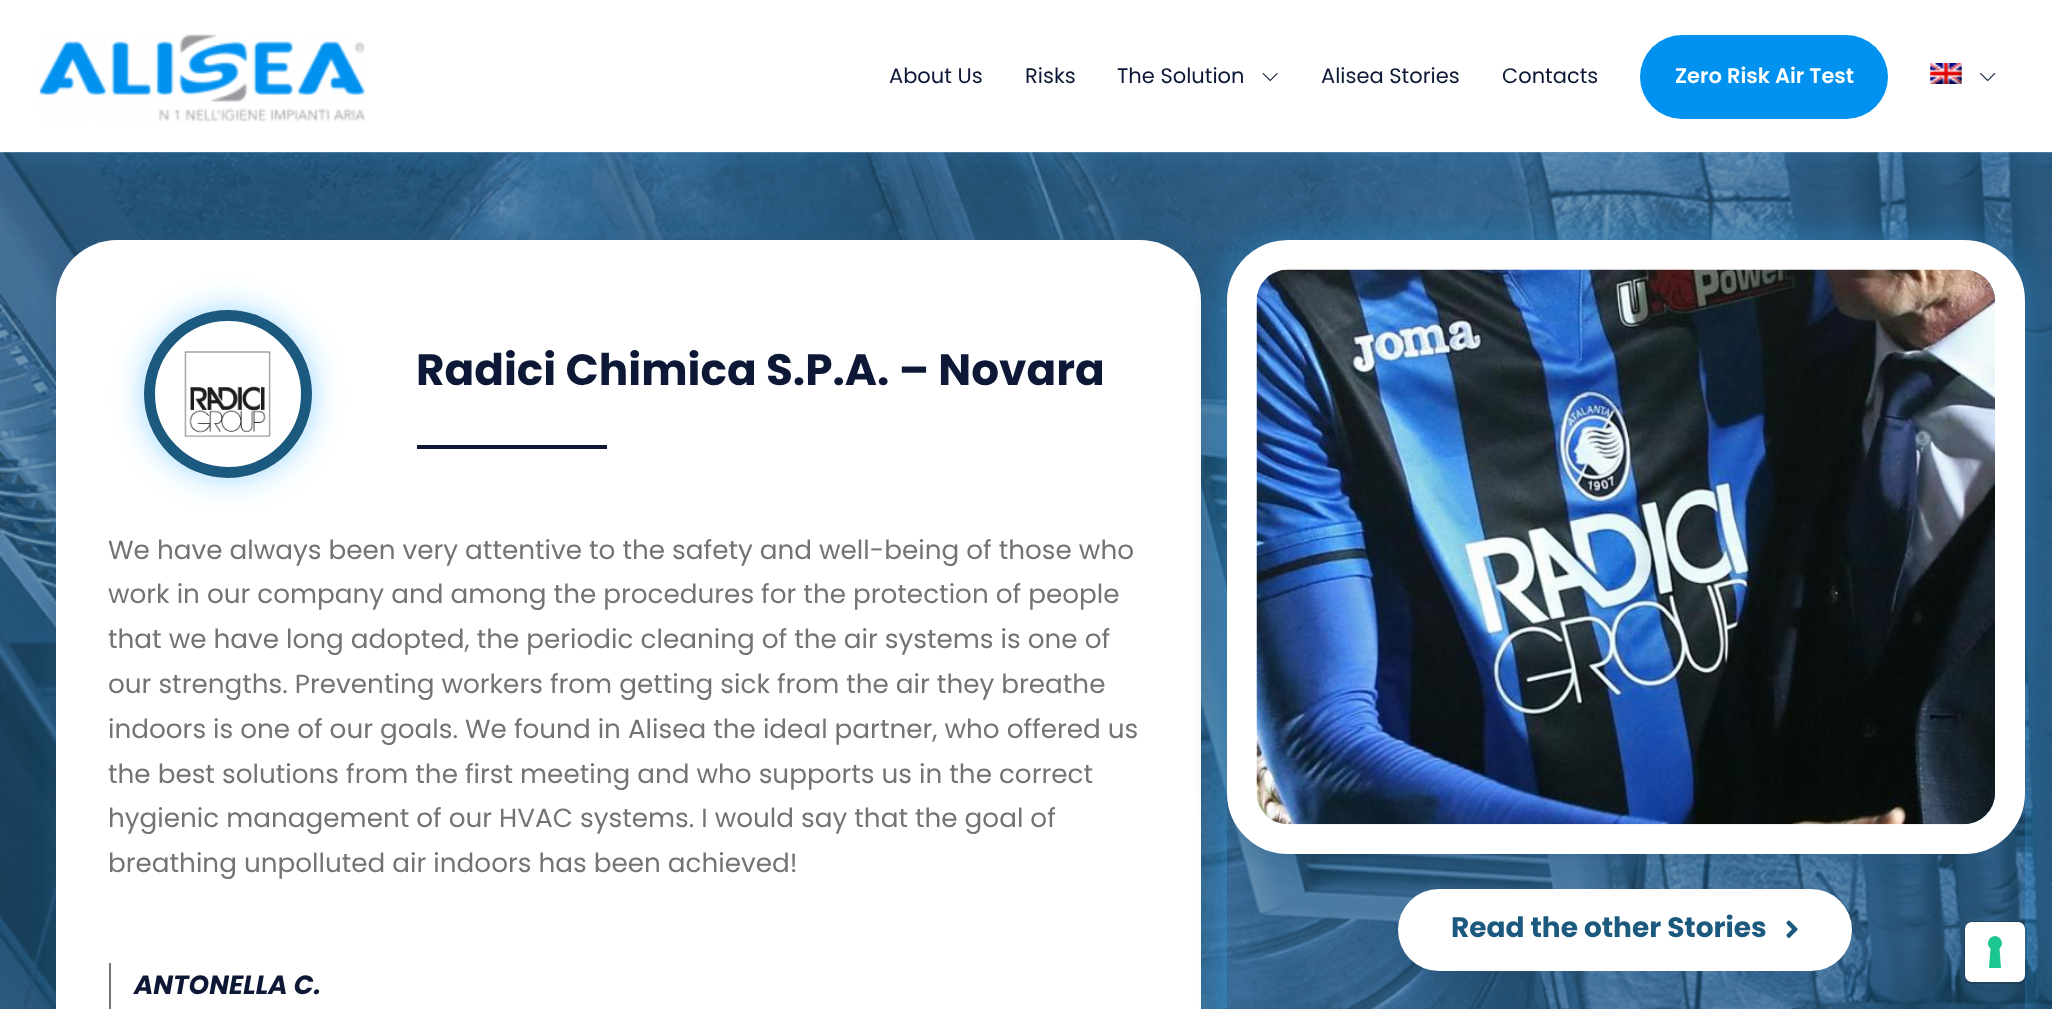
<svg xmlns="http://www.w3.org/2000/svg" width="2052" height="1009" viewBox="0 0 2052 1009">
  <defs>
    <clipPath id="clip1"><rect x="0" y="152" width="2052" height="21"/></clipPath>
    <filter id="blur1" x="-50%" y="-200%" width="200%" height="500%"><feGaussianBlur stdDeviation="15"/></filter>
    <clipPath id="clip2"><path d="M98 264H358V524H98ZM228 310C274.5 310 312 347.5 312 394C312 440.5 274.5 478 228 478C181.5 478 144 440.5 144 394C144 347.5 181.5 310 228 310Z" clip-rule="evenodd"/></clipPath>
    <clipPath id="clip3"><path d="M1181 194H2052V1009H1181ZM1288 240H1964C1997.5 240 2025 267.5 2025 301V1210C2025 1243.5 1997.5 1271 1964 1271H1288C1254.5 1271 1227 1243.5 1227 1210V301C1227 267.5 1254.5 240 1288 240Z" clip-rule="evenodd"/></clipPath>
  </defs>
  <rect width="100%" height="100%" fill="#ffffff"/>
  <rect x="0" y="152" width="2052" height="1" fill="#7a9eb3"/>
  <image x="0" y="152" width="2052" height="857" href="img5.png"/>
  <g clip-path="url(#clip1)">
    <rect x="2" y="2" width="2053" height="152" fill="#34afff" fill-opacity="0.2" filter="url(#blur1)"/>
  </g>
  <image x="38" y="34" width="328" height="88" href="img1.png"/>
  <text x="889" y="83" font-family="Poppins" font-size="21" fill="#0d1837">About Us</text>
  <text x="1025" y="83" font-family="Poppins" font-size="21" fill="#0d1837">Risks</text>
  <text x="1117" y="83" font-family="Poppins" font-size="21" fill="#0d1837">The Solution</text>
  <image x="1262" y="73" width="16" height="8" href="img2.png"/>
  <text x="1321" y="83" font-family="Poppins" font-size="21" fill="#0d1837">Alisea Stories</text>
  <text x="1502" y="83" font-family="Poppins" font-size="21" fill="#0d1837">Contacts</text>
  <rect x="1640" y="35" width="248" height="84" rx="42" fill="#0192f0"/>
  <text x="1675" y="83" font-family="Poppins" font-size="21" font-weight="600" fill="#ffffff">Zero Risk Air Test</text>
  <image x="1930" y="63" width="32" height="21" href="img3.png"/>
  <image x="1980" y="73" width="16" height="8" href="img4.png"/>
  <rect x="56" y="240" width="1145" height="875" rx="61" fill="#1c597f" fill-opacity="0.53" filter="url(#blur1)"/>
  <rect x="56" y="240" width="1145" height="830" rx="61" fill="#ffffff"/>
  <g clip-path="url(#clip2)">
    <rect x="144" y="310" width="168" height="168" rx="84" fill="#34afff" fill-opacity="0.5" filter="url(#blur1)"/>
  </g>
  <circle cx="228" cy="394" r="78.5" fill="none" stroke="#1c597f" stroke-width="11"/>
  <image x="184" y="351" width="87" height="86" href="img6.png"/>
  <text x="416" y="385" font-family="Poppins" font-size="43.75" font-weight="bold" fill="#0d1837">Radici Chimica S.P.A. – Novara</text>
  <rect x="417" y="445" width="190" height="4" fill="#0d1837"/>
  <text x="108" y="559" font-family="Poppins" font-size="26.25" fill="#737373">We have always been very attentive to the safety and well-being of those who</text>
  <text x="108" y="603" font-family="Poppins" font-size="26.25" fill="#737373">work in our company and among the procedures for the protection of people</text>
  <text x="108" y="648" font-family="Poppins" font-size="26.25" fill="#737373">that we have long adopted, the periodic cleaning of the air systems is one of</text>
  <text x="108" y="693" font-family="Poppins" font-size="26.25" fill="#737373">our strengths. Preventing workers from getting sick from the air they breathe</text>
  <text x="108" y="738" font-family="Poppins" font-size="26.25" fill="#737373">indoors is one of our goals. We found in Alisea the ideal partner, who offered us</text>
  <text x="108" y="783" font-family="Poppins" font-size="26.25" fill="#737373">the best solutions from the first meeting and who supports us in the correct</text>
  <text x="108" y="827" font-family="Poppins" font-size="26.25" fill="#737373">hygienic management of our HVAC systems. I would say that the goal of</text>
  <text x="108" y="872" font-family="Poppins" font-size="26.25" fill="#737373">breathing unpolluted air indoors has been achieved!</text>
  <rect x="109" y="963" width="2" height="46" fill="#737373"/>
  <text x="134" y="994" font-family="Poppins" font-size="26.25" font-weight="bold" font-style="italic" fill="#0d1837">ANTONELLA C.</text>
  <g clip-path="url(#clip3)">
    <rect x="1227" y="240" width="798" height="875" rx="61" fill="#34afff" fill-opacity="0.5" filter="url(#blur1)"/>
  </g>
  <rect x="1227" y="240" width="798" height="614" rx="61" fill="#1c597f" fill-opacity="0.53" filter="url(#blur1)"/>
  <rect x="1242" y="255" width="768" height="584" rx="46" fill="none" stroke="#ffffff" stroke-width="30"/>
  <image x="1256" y="269" width="739" height="556" href="img7.png"/>
  <rect x="1398" y="889" width="454" height="82" rx="41" fill="#ffffff"/>
  <text x="1451" y="937" font-family="Poppins" font-size="28" font-weight="bold" fill="#1c597f">Read the other Stories</text>
  <image x="1786" y="920" width="12" height="18" href="img8.png"/>
  <rect x="1965" y="922" width="61" height="61" rx="8" fill="none" stroke="#000000" stroke-opacity="0.15" stroke-width="2"/>
  <rect x="1965" y="922" width="60" height="60" rx="7" fill="#ffffff"/>
  <path d="M1995 936C2001.5 936.5 2004.5 944.5 1999.5 948.5L2001 968H1989L1990.5 948.5C1985.5 944.5 1988.5 936.5 1995 936Z" fill="#1cc691" fill-rule="evenodd"/>
</svg>
